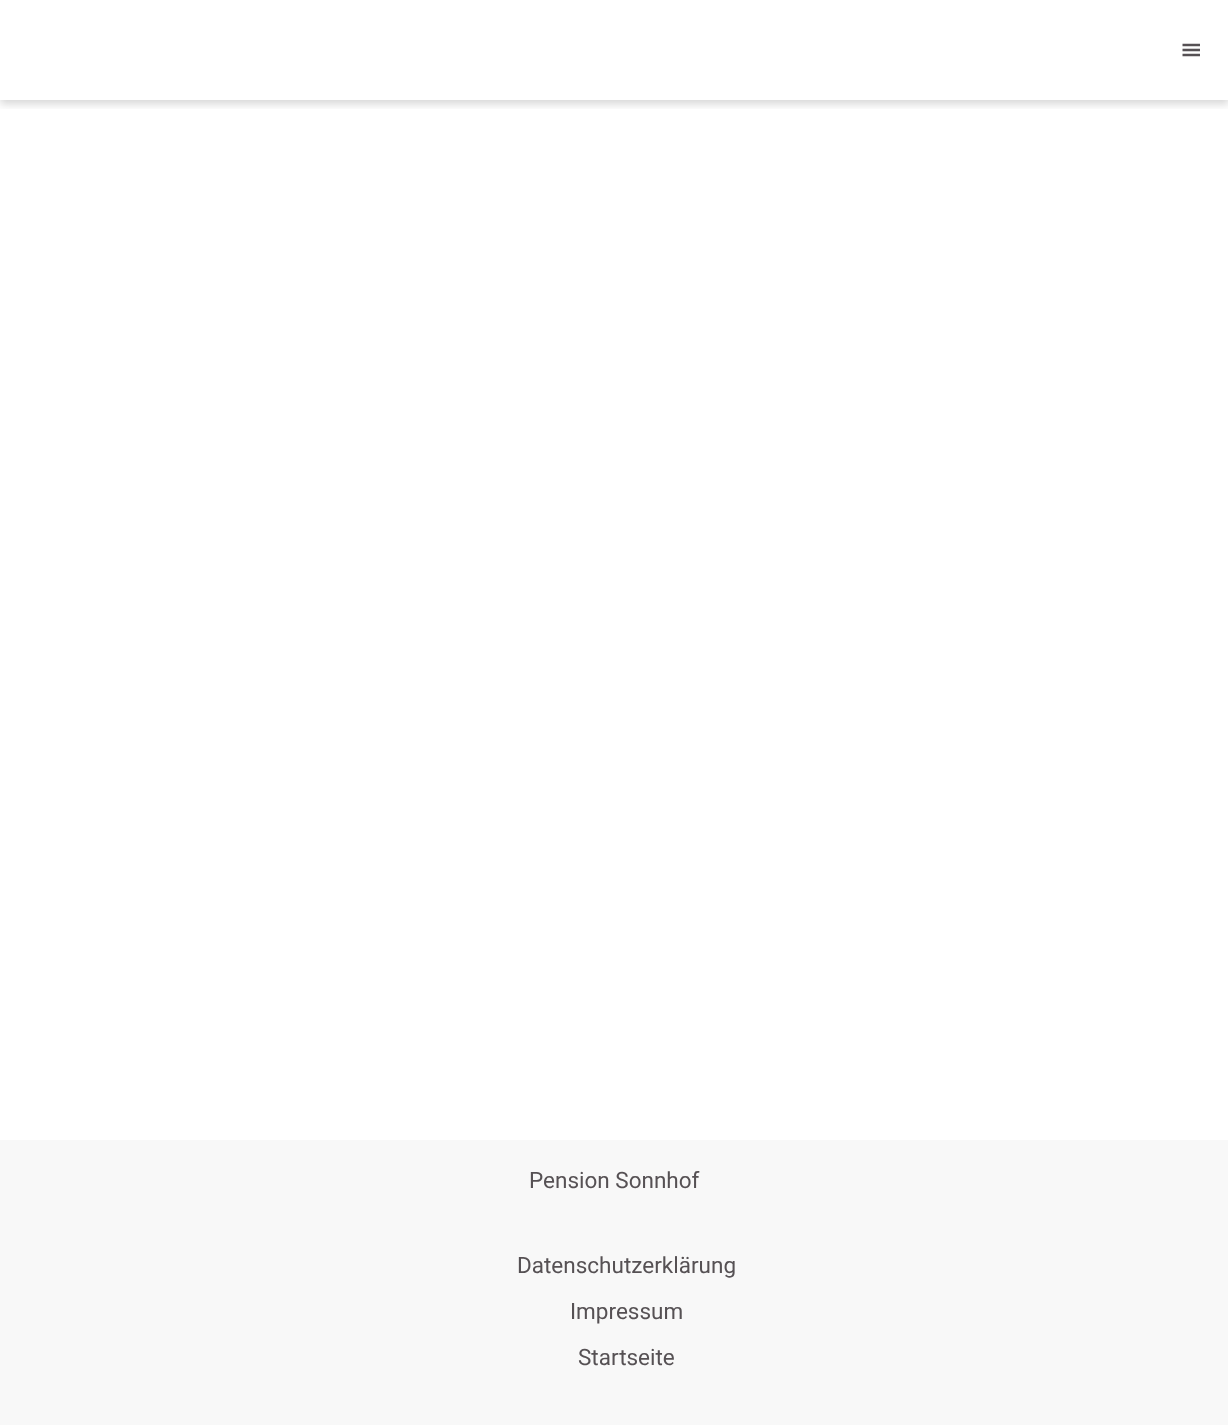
<svg xmlns="http://www.w3.org/2000/svg" width="1228" height="1425" viewBox="0 0 1228 1425">
  <defs>
    <clipPath id="clip1"><rect x="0" y="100" width="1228" height="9"/></clipPath>
    <filter id="blur1" x="-50%" y="-200%" width="200%" height="500%"><feGaussianBlur stdDeviation="4"/></filter>
  </defs>
  <rect width="100%" height="100%" fill="#ffffff"/>
  <g clip-path="url(#clip1)">
    <rect x="0" y="4" width="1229" height="100" fill="#000000" fill-opacity="0.16" filter="url(#blur1)"/>
  </g>
  <image x="1182" y="43" width="18" height="14" href="img1.png"/>
  <rect x="0" y="1140" width="1228" height="285" fill="#f8f8f8"/>
  <text x="529" y="1188" font-family="Roboto" font-size="22.5" fill="#565154">Pension Sonnhof</text>
  <text x="517" y="1273" font-family="Roboto" font-size="22.5" fill="#565154">Datenschutzerklärung</text>
  <text x="570" y="1319" font-family="Roboto" font-size="22.5" fill="#565154">Impressum</text>
  <text x="578" y="1365" font-family="Roboto" font-size="22.5" fill="#565154">Startseite</text>
</svg>
